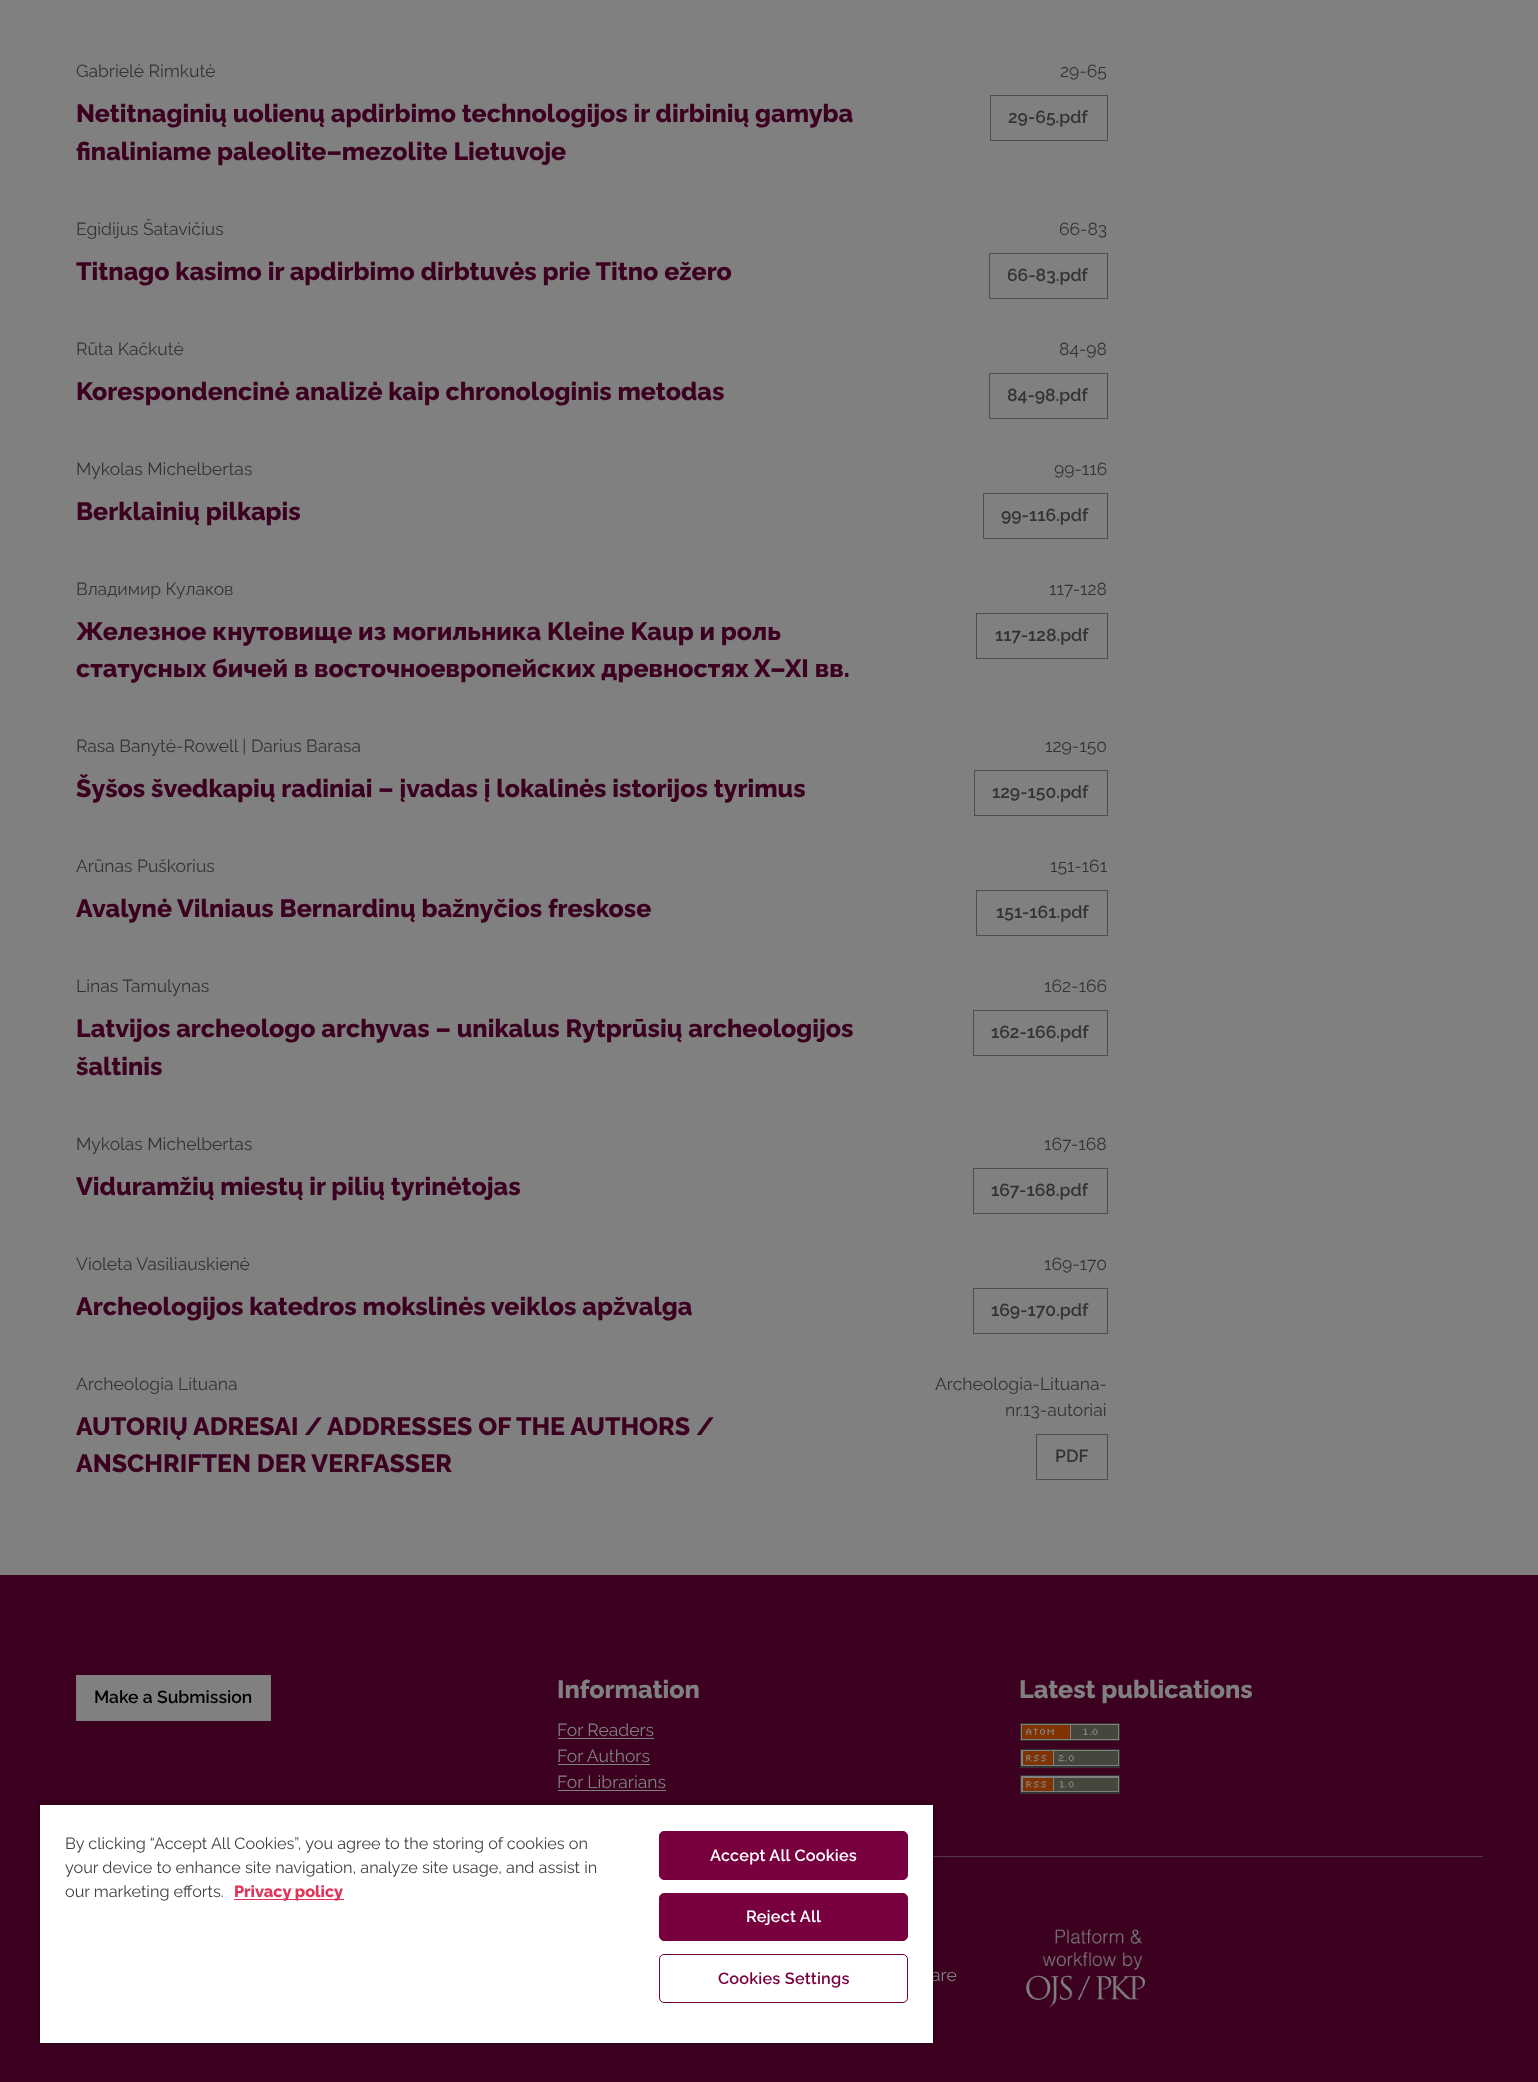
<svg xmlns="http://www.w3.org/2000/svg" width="1538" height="2082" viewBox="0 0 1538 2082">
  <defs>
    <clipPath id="clip1"><path d="M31 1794H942V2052H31ZM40 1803H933V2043H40Z" clip-rule="evenodd"/></clipPath>
    <filter id="blur1" x="-50%" y="-200%" width="200%" height="500%"><feGaussianBlur stdDeviation="2.5"/></filter>
    <clipPath id="clip2"><rect x="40" y="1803" width="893" height="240"/></clipPath>
  </defs>
  <rect width="100%" height="100%" fill="#808080"/>
  <rect x="76" y="45" width="1032" height="1" fill="#7c7c7c"/>
  <rect x="76" y="203" width="1032" height="1" fill="#7c7c7c"/>
  <text x="76" y="77" font-family="Raleway" font-size="17.5" fill="#333333">Gabrielė Rimkutė</text>
  <text x="76" y="122" font-family="Raleway" font-size="25" font-weight="800" fill="#3c0020">Netitnaginių uolienų apdirbimo technologijos ir dirbinių gamyba</text>
  <text x="76" y="160" font-family="Raleway" font-size="25" font-weight="800" fill="#3c0020">finaliniame paleolite–mezolite Lietuvoje</text>
  <text x="1060" y="77" font-family="Raleway" font-size="17.5" fill="#333333">29-65</text>
  <rect x="990.5" y="95.5" width="117" height="45" fill="none" stroke="#4d4d4d"/>
  <text x="1008" y="123" font-family="Raleway" font-size="17.5" font-weight="600" fill="#333333">29-65.pdf</text>
  <rect x="76" y="323" width="1032" height="1" fill="#7c7c7c"/>
  <text x="76" y="235" font-family="Raleway" font-size="17.5" fill="#333333">Egidijus Šatavičius</text>
  <text x="76" y="280" font-family="Raleway" font-size="25" font-weight="800" fill="#3c0020">Titnago kasimo ir apdirbimo dirbtuvės prie Titno ežero</text>
  <text x="1059" y="235" font-family="Raleway" font-size="17.5" fill="#333333">66-83</text>
  <rect x="989.5" y="253.5" width="118" height="45" fill="none" stroke="#4d4d4d"/>
  <text x="1007" y="281" font-family="Raleway" font-size="17.5" font-weight="600" fill="#333333">66-83.pdf</text>
  <rect x="76" y="443" width="1032" height="1" fill="#7c7c7c"/>
  <text x="76" y="355" font-family="Raleway" font-size="17.5" fill="#333333">Rūta Kačkutė</text>
  <text x="76" y="400" font-family="Raleway" font-size="25" font-weight="800" fill="#3c0020">Korespondencinė analizė kaip chronologinis metodas</text>
  <text x="1059" y="355" font-family="Raleway" font-size="17.5" fill="#333333">84-98</text>
  <rect x="989.5" y="373.5" width="118" height="45" fill="none" stroke="#4d4d4d"/>
  <text x="1007" y="401" font-family="Raleway" font-size="17.5" font-weight="600" fill="#333333">84-98.pdf</text>
  <rect x="76" y="563" width="1032" height="1" fill="#7c7c7c"/>
  <text x="76" y="475" font-family="Raleway" font-size="17.5" fill="#333333">Mykolas Michelbertas</text>
  <text x="76" y="520" font-family="Raleway" font-size="25" font-weight="800" fill="#3c0020">Berklainių pilkapis</text>
  <text x="1054" y="475" font-family="Raleway" font-size="17.5" fill="#333333">99-116</text>
  <rect x="983.5" y="493.5" width="124" height="45" fill="none" stroke="#4d4d4d"/>
  <text x="1001" y="521" font-family="Raleway" font-size="17.5" font-weight="600" fill="#333333">99-116.pdf</text>
  <rect x="76" y="720" width="1032" height="1" fill="#7c7c7c"/>
  <text x="76" y="595" font-family="Raleway" font-size="17.5" fill="#333333">Владимир Кулаков</text>
  <text x="76" y="640" font-family="Raleway" font-size="25" font-weight="800" fill="#3c0020">Железное кнутовище из могильника Kleine Kaup и роль</text>
  <text x="76" y="677" font-family="Raleway" font-size="25" font-weight="800" fill="#3c0020">статусных бичей в восточноевропейских древностях X–XI вв.</text>
  <text x="1049" y="595" font-family="Raleway" font-size="17.5" fill="#333333">117-128</text>
  <rect x="976.5" y="613.5" width="131" height="45" fill="none" stroke="#4d4d4d"/>
  <text x="995" y="641" font-family="Raleway" font-size="17.5" font-weight="600" fill="#333333">117-128.pdf</text>
  <rect x="76" y="840" width="1032" height="1" fill="#7c7c7c"/>
  <text x="76" y="752" font-family="Raleway" font-size="17.5" fill="#333333">Rasa Banytė-Rowell | Darius Barasa</text>
  <text x="76" y="797" font-family="Raleway" font-size="25" font-weight="800" fill="#3c0020">Šyšos švedkapių radiniai – įvadas į lokalinės istorijos tyrimus</text>
  <text x="1045" y="752" font-family="Raleway" font-size="17.5" fill="#333333">129-150</text>
  <rect x="974.5" y="770.5" width="133" height="45" fill="none" stroke="#4d4d4d"/>
  <text x="992" y="798" font-family="Raleway" font-size="17.5" font-weight="600" fill="#333333">129-150.pdf</text>
  <rect x="76" y="960" width="1032" height="1" fill="#7c7c7c"/>
  <text x="76" y="872" font-family="Raleway" font-size="17.5" fill="#333333">Arūnas Puškorius</text>
  <text x="76" y="917" font-family="Raleway" font-size="25" font-weight="800" fill="#3c0020">Avalynė Vilniaus Bernardinų bažnyčios freskose</text>
  <text x="1050" y="872" font-family="Raleway" font-size="17.5" fill="#333333">151-161</text>
  <rect x="976.5" y="890.5" width="131" height="45" fill="none" stroke="#4d4d4d"/>
  <text x="996" y="918" font-family="Raleway" font-size="17.5" font-weight="600" fill="#333333">151-161.pdf</text>
  <rect x="76" y="1118" width="1032" height="1" fill="#7c7c7c"/>
  <text x="76" y="992" font-family="Raleway" font-size="17.5" fill="#333333">Linas Tamulynas</text>
  <text x="76" y="1037" font-family="Raleway" font-size="25" font-weight="800" fill="#3c0020">Latvijos archeologo archyvas – unikalus Rytprūsių archeologijos</text>
  <text x="76" y="1075" font-family="Raleway" font-size="25" font-weight="800" fill="#3c0020">šaltinis</text>
  <text x="1044" y="992" font-family="Raleway" font-size="17.5" fill="#333333">162-166</text>
  <rect x="973.5" y="1010.5" width="134" height="45" fill="none" stroke="#4d4d4d"/>
  <text x="991" y="1038" font-family="Raleway" font-size="17.5" font-weight="600" fill="#333333">162-166.pdf</text>
  <rect x="76" y="1238" width="1032" height="1" fill="#7c7c7c"/>
  <text x="76" y="1150" font-family="Raleway" font-size="17.5" fill="#333333">Mykolas Michelbertas</text>
  <text x="76" y="1195" font-family="Raleway" font-size="25" font-weight="800" fill="#3c0020">Viduramžių miestų ir pilių tyrinėtojas</text>
  <text x="1044" y="1150" font-family="Raleway" font-size="17.5" fill="#333333">167-168</text>
  <rect x="973.5" y="1168.5" width="134" height="45" fill="none" stroke="#4d4d4d"/>
  <text x="991" y="1196" font-family="Raleway" font-size="17.5" font-weight="600" fill="#333333">167-168.pdf</text>
  <rect x="76" y="1358" width="1032" height="1" fill="#7c7c7c"/>
  <text x="76" y="1270" font-family="Raleway" font-size="17.5" fill="#333333">Violeta Vasiliauskienė</text>
  <text x="76" y="1315" font-family="Raleway" font-size="25" font-weight="800" fill="#3c0020">Archeologijos katedros mokslinės veiklos apžvalga</text>
  <text x="1044" y="1270" font-family="Raleway" font-size="17.5" fill="#333333">169-170</text>
  <rect x="973.5" y="1288.5" width="134" height="45" fill="none" stroke="#4d4d4d"/>
  <text x="991" y="1316" font-family="Raleway" font-size="17.5" font-weight="600" fill="#333333">169-170.pdf</text>
  <text x="76" y="1390" font-family="Raleway" font-size="17.5" fill="#333333">Archeologia Lituana</text>
  <text x="76" y="1435" font-family="Raleway" font-size="25" font-weight="800" fill="#3c0020">AUTORIŲ ADRESAI /</text>
  <text x="327" y="1435" font-family="Raleway" font-size="25" font-weight="800" fill="#3c0020">ADDRESSES OF THE AUTHORS /</text>
  <text x="76" y="1472" font-family="Raleway" font-size="25" font-weight="800" fill="#3c0020">ANSCHRIFTEN DER VERFASSER</text>
  <text x="935" y="1390" font-family="Raleway" font-size="17.5" fill="#333333">Archeologia-Lituana-</text>
  <text x="1005" y="1416" font-family="Raleway" font-size="17.5" fill="#333333">nr.13-autoriai</text>
  <rect x="1036.5" y="1434.5" width="71" height="45" fill="none" stroke="#4d4d4d"/>
  <text x="1055" y="1462" font-family="Raleway" font-size="17.5" font-weight="600" fill="#333333">PDF</text>
  <rect x="0" y="1575" width="1538" height="507" fill="#3c0020"/>
  <rect x="933" y="1856" width="550" height="1" fill="#573346"/>
  <rect x="76.5" y="1675.5" width="194" height="45" fill="#808080" stroke="#7c7c7c"/>
  <text x="94" y="1703" font-family="Raleway" font-size="17.5" font-weight="600" fill="#000000">Make a Submission</text>
  <text x="557" y="1698" font-family="Raleway" font-size="25" font-weight="800" fill="#808080">Information</text>
  <text x="557" y="1736" font-family="Raleway" font-size="17.5" fill="#808080">For Readers</text>
  <rect x="558" y="1738" width="96" height="1" fill="#808080"/>
  <text x="557" y="1762" font-family="Raleway" font-size="17.5" fill="#808080">For Authors</text>
  <rect x="558" y="1764" width="92" height="1" fill="#808080"/>
  <text x="557" y="1788" font-family="Raleway" font-size="17.5" fill="#808080">For Librarians</text>
  <rect x="558" y="1790" width="108" height="1" fill="#808080"/>
  <text x="1019" y="1698" font-family="Raleway" font-size="25" font-weight="800" fill="#808080">Latest publications</text>
  <image x="1020" y="1723" width="100" height="18" href="img1.png"/>
  <image x="1020" y="1749" width="100" height="19" href="img2.png"/>
  <image x="1020" y="1775" width="100" height="19" href="img3.png"/>
  <text x="931" y="1981" font-family="Raleway" font-size="17.5" fill="#808080">are</text>
  <image x="1026" y="1929" width="119" height="78" href="img4.png"/>
  <g clip-path="url(#clip1)">
    <rect x="40" y="1803" width="893" height="240" fill="#000000" fill-opacity="0.35" filter="url(#blur1)"/>
  </g>
  <g clip-path="url(#clip2)">
    <rect x="40" y="1805" width="893" height="238" fill="#000000" fill-opacity="0.2" filter="url(#blur1)"/>
  </g>
  <rect x="40" y="1805" width="893" height="238" fill="#ffffff"/>
  <text x="65" y="1849" font-family="Raleway" font-size="16.25" fill="#414141">By clicking “Accept All Cookies”, you agree to the storing of cookies on</text>
  <text x="65" y="1873" font-family="Raleway" font-size="16.25" fill="#414141">your device to enhance site navigation, analyze site usage, and assist in</text>
  <text x="65" y="1897" font-family="Raleway" font-size="16.25" fill="#414141">our marketing efforts.</text>
  <rect x="234" y="1899" width="110" height="1" fill="#e13559"/>
  <text x="234" y="1897" font-family="Raleway" font-size="16.25" font-weight="800" fill="#e13559">Privacy policy</text>
  <rect x="659.5" y="1831.5" width="248" height="48" rx="4.5" fill="#78003f" stroke="#78003f"/>
  <text x="710" y="1861" font-family="Raleway" font-size="16.25" font-weight="600" letter-spacing="0.2" fill="#ffffff">Accept All Cookies</text>
  <rect x="659.5" y="1893.5" width="248" height="47" rx="4.5" fill="#78003f" stroke="#78003f"/>
  <text x="746" y="1922" font-family="Raleway" font-size="16.25" font-weight="600" letter-spacing="0.2" fill="#ffffff">Reject All</text>
  <rect x="659.5" y="1954.5" width="248" height="48" rx="4.5" fill="none" stroke="#78003f"/>
  <text x="718" y="1984" font-family="Raleway" font-size="16.25" font-weight="600" letter-spacing="0.2" fill="#78003f">Cookies Settings</text>
</svg>
